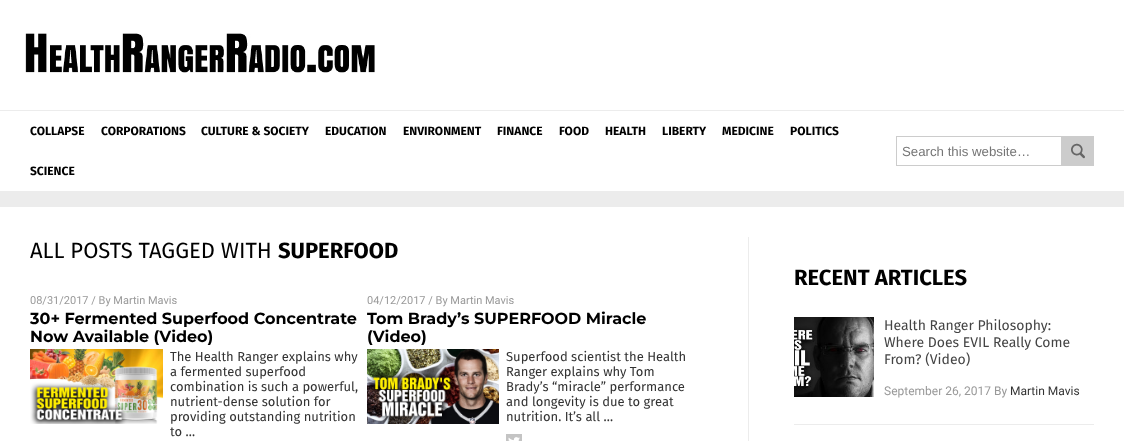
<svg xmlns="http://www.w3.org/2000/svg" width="1124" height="441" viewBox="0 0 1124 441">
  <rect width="100%" height="100%" fill="#ececec"/>
  <rect x="0" y="0" width="1124" height="110" fill="#ffffff"/>
  <image x="25" y="33" width="350" height="40" href="img1.png"/>
  <rect x="0" y="111" width="1124" height="80" fill="#ffffff"/>
  <text x="30" y="135" font-family="Fira Sans" font-size="12" font-weight="bold" fill="#000000">COLLAPSE</text>
  <text x="101" y="135" font-family="Fira Sans" font-size="12" font-weight="bold" fill="#000000">CORPORATIONS</text>
  <text x="201" y="135" font-family="Fira Sans" font-size="12" font-weight="bold" fill="#000000">CULTURE &amp; SOCIETY</text>
  <text x="325" y="135" font-family="Fira Sans" font-size="12" font-weight="bold" fill="#000000">EDUCATION</text>
  <text x="403" y="135" font-family="Fira Sans" font-size="12" font-weight="bold" fill="#000000">ENVIRONMENT</text>
  <text x="497" y="135" font-family="Fira Sans" font-size="12" font-weight="bold" fill="#000000">FINANCE</text>
  <text x="559" y="135" font-family="Fira Sans" font-size="12" font-weight="bold" fill="#000000">FOOD</text>
  <text x="605" y="135" font-family="Fira Sans" font-size="12" font-weight="bold" fill="#000000">HEALTH</text>
  <text x="662" y="135" font-family="Fira Sans" font-size="12" font-weight="bold" fill="#000000">LIBERTY</text>
  <text x="722" y="135" font-family="Fira Sans" font-size="12" font-weight="bold" fill="#000000">MEDICINE</text>
  <text x="790" y="135" font-family="Fira Sans" font-size="12" font-weight="bold" fill="#000000">POLITICS</text>
  <text x="30" y="175" font-family="Fira Sans" font-size="12" font-weight="bold" fill="#000000">SCIENCE</text>
  <rect x="896.5" y="136.5" width="165" height="29" fill="none" stroke="#cccccc"/>
  <text x="902" y="156" font-family="Liberation Sans" font-size="13.25" fill="#757575">Search this website…</text>
  <rect x="1062" y="136" width="32" height="30" fill="#cccccc"/>
  <image x="1071" y="143" width="14" height="16" href="img2.png"/>
  <rect x="0" y="207" width="1124" height="234" fill="#ffffff"/>
  <rect x="748" y="237" width="1" height="204" fill="#ececec"/>
  <text x="30" y="258" font-family="Fira Sans" font-size="22" fill="#000000">ALL POSTS TAGGED WITH</text>
  <text x="278" y="258" font-family="Fira Sans" font-size="22" font-weight="bold" fill="#000000">SUPERFOOD</text>
  <text x="30" y="304" font-family="Roboto" font-size="11" fill="#999999">08/31/2017 / By Martin Mavis</text>
  <text x="30" y="324" font-family="Montserrat" font-size="16" font-weight="bold" fill="#000000">30+ Fermented Superfood Concentrate</text>
  <text x="30" y="342" font-family="Montserrat" font-size="16" font-weight="bold" fill="#000000">Now Available (Video)</text>
  <image x="30" y="349" width="133" height="75" href="img3.png"/>
  <text x="170" y="361" font-family="Fira Sans" font-size="13" fill="#333333">The Health Ranger explains why</text>
  <text x="170" y="376" font-family="Fira Sans" font-size="13" fill="#333333">a fermented superfood</text>
  <text x="170" y="391" font-family="Fira Sans" font-size="13" fill="#333333">combination is such a powerful,</text>
  <text x="170" y="406" font-family="Fira Sans" font-size="13" fill="#333333">nutrient-dense solution for</text>
  <text x="170" y="421" font-family="Fira Sans" font-size="13" fill="#333333">providing outstanding nutrition</text>
  <text x="170" y="436" font-family="Fira Sans" font-size="13" fill="#333333">to …</text>
  <text x="367" y="304" font-family="Roboto" font-size="11" fill="#999999">04/12/2017 / By Martin Mavis</text>
  <text x="367" y="324" font-family="Montserrat" font-size="16" font-weight="bold" fill="#000000">Tom Brady’s SUPERFOOD Miracle</text>
  <text x="367" y="342" font-family="Montserrat" font-size="16" font-weight="bold" fill="#000000">(Video)</text>
  <image x="367" y="349" width="132" height="75" href="img4.png"/>
  <text x="506" y="361" font-family="Fira Sans" font-size="13" fill="#333333">Superfood scientist the Health</text>
  <text x="506" y="376" font-family="Fira Sans" font-size="13" fill="#333333">Ranger explains why Tom</text>
  <text x="506" y="391" font-family="Fira Sans" font-size="13" fill="#333333">Brady’s “miracle” performance</text>
  <text x="506" y="406" font-family="Fira Sans" font-size="13" fill="#333333">and longevity is due to great</text>
  <text x="506" y="421" font-family="Fira Sans" font-size="13" fill="#333333">nutrition. It’s all …</text>
  <rect x="506" y="434" width="16" height="7" fill="#c4c4c4"/>
  <image x="508" y="437" width="12" height="4" href="img5.png"/>
  <text x="794" y="285" font-family="Fira Sans" font-size="22" font-weight="bold" fill="#000000">RECENT ARTICLES</text>
  <rect x="794" y="424" width="300" height="1" fill="#ececec"/>
  <image x="794" y="317" width="80" height="80" href="img6.png"/>
  <text x="884" y="330" font-family="Fira Sans" font-size="14" fill="#444444">Health Ranger Philosophy:</text>
  <text x="884" y="347" font-family="Fira Sans" font-size="14" fill="#444444">Where Does EVIL Really Come</text>
  <text x="884" y="364" font-family="Fira Sans" font-size="14" fill="#444444">From? (Video)</text>
  <text x="884" y="395" font-family="Roboto" font-size="12" fill="#999999">September 26, 2017 By</text>
  <text x="1010" y="395" font-family="Roboto" font-size="12" fill="#333333">Martin Mavis</text>
</svg>
